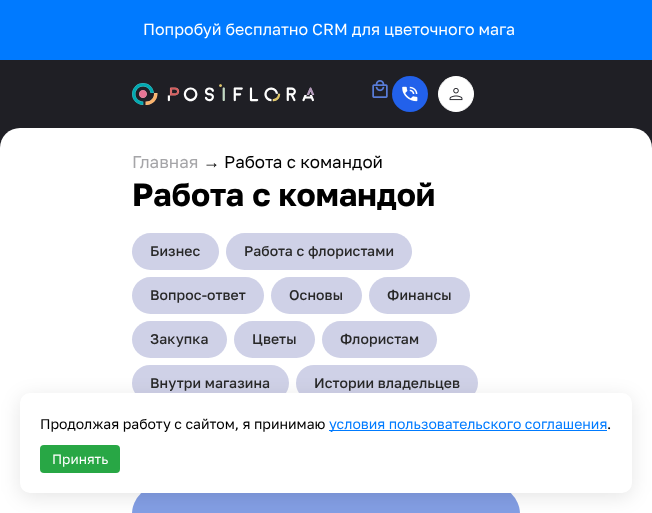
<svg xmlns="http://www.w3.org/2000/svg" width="652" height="513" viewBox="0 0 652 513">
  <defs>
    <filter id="blur1" x="-50%" y="-200%" width="200%" height="500%"><feGaussianBlur stdDeviation="10"/></filter>
  </defs>
  <rect width="100%" height="100%" fill="#1f1f25"/>
  <rect x="0" y="0" width="652" height="60" fill="#007aff"/>
  <text x="143" y="35" font-family="Golos Text" font-size="16" fill="#ffffff">Попробуй бесплатно CRM для цветочного мага</text>
  <image x="132" y="83" width="183" height="22" href="img1.png"/>
  <image x="372" y="80" width="16" height="18" href="img2.png"/>
  <circle cx="410" cy="94" r="18" fill="#2261eb"/>
  <image x="402" y="86" width="16" height="16" href="img3.png"/>
  <circle cx="456" cy="94" r="17.5" fill="#ffffff" stroke="#ffffff"/>
  <image x="449" y="88" width="14" height="13" href="img4.png"/>
  <rect x="0" y="128" width="652" height="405" rx="20" fill="#ffffff"/>
  <text x="132" y="168" font-family="Golos Text" font-size="17" fill="#a5a5a8">Главная</text>
  <text x="203" y="168" font-family="Liberation Sans" font-size="17" fill="#000000">→</text>
  <text x="224" y="168" font-family="Golos Text" font-size="17" fill="#000000">Работа с командой</text>
  <text x="132" y="206" font-family="Golos Text" font-size="32" font-weight="bold" fill="#000000">Работа с командой</text>
  <rect x="132" y="233" width="87" height="37" rx="18.5" fill="#cfd1e7"/>
  <text x="150" y="256" font-family="Golos Text" font-size="14" font-weight="500" letter-spacing="0.1" fill="#282828">Бизнес</text>
  <rect x="226" y="233" width="186" height="37" rx="18.5" fill="#cfd1e7"/>
  <text x="244" y="256" font-family="Golos Text" font-size="14" font-weight="500" letter-spacing="0.1" fill="#282828">Работа с флористами</text>
  <rect x="132" y="277" width="132" height="37" rx="18.5" fill="#cfd1e7"/>
  <text x="150" y="300" font-family="Golos Text" font-size="14" font-weight="500" letter-spacing="0.1" fill="#282828">Вопрос-ответ</text>
  <rect x="271" y="277" width="91" height="37" rx="18.5" fill="#cfd1e7"/>
  <text x="289" y="300" font-family="Golos Text" font-size="14" font-weight="500" letter-spacing="0.1" fill="#282828">Основы</text>
  <rect x="369" y="277" width="101" height="37" rx="18.5" fill="#cfd1e7"/>
  <text x="387" y="300" font-family="Golos Text" font-size="14" font-weight="500" letter-spacing="0.1" fill="#282828">Финансы</text>
  <rect x="132" y="321" width="95" height="37" rx="18.5" fill="#cfd1e7"/>
  <text x="150" y="344" font-family="Golos Text" font-size="14" font-weight="500" letter-spacing="0.1" fill="#282828">Закупка</text>
  <rect x="234" y="321" width="81" height="37" rx="18.5" fill="#cfd1e7"/>
  <text x="252" y="344" font-family="Golos Text" font-size="14" font-weight="500" letter-spacing="0.1" fill="#282828">Цветы</text>
  <rect x="322" y="321" width="115" height="37" rx="18.5" fill="#cfd1e7"/>
  <text x="340" y="344" font-family="Golos Text" font-size="14" font-weight="500" letter-spacing="0.1" fill="#282828">Флористам</text>
  <rect x="132" y="365" width="157" height="36" rx="18" fill="#cfd1e7"/>
  <text x="150" y="388" font-family="Golos Text" font-size="14" font-weight="500" letter-spacing="0.1" fill="#282828">Внутри магазина</text>
  <rect x="296" y="365" width="182" height="36" rx="18" fill="#cfd1e7"/>
  <text x="314" y="388" font-family="Golos Text" font-size="14" font-weight="500" letter-spacing="0.1" fill="#282828">Истории владельцев</text>
  <rect x="132" y="485" width="388" height="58" rx="30" fill="#839ee4"/>
  <rect x="20" y="397" width="612" height="100" rx="10" fill="#000000" fill-opacity="0.1" filter="url(#blur1)"/>
  <rect x="20" y="393" width="612" height="100" rx="10" fill="#ffffff"/>
  <text x="40" y="429" font-family="Golos Text" font-size="14" fill="#000000">Продолжая работу с сайтом, я принимаю</text>
  <rect x="329" y="430" width="278" height="1" fill="#007bff"/>
  <text x="329" y="429" font-family="Golos Text" font-size="14" fill="#007bff">условия пользовательского соглашения</text>
  <text x="607" y="429" font-family="Golos Text" font-size="14" fill="#000000">.</text>
  <rect x="40" y="445" width="80" height="28" rx="4" fill="#28a745"/>
  <text x="52" y="464" font-family="Golos Text" font-size="13.5" fill="#ffffff">Принять</text>
</svg>
